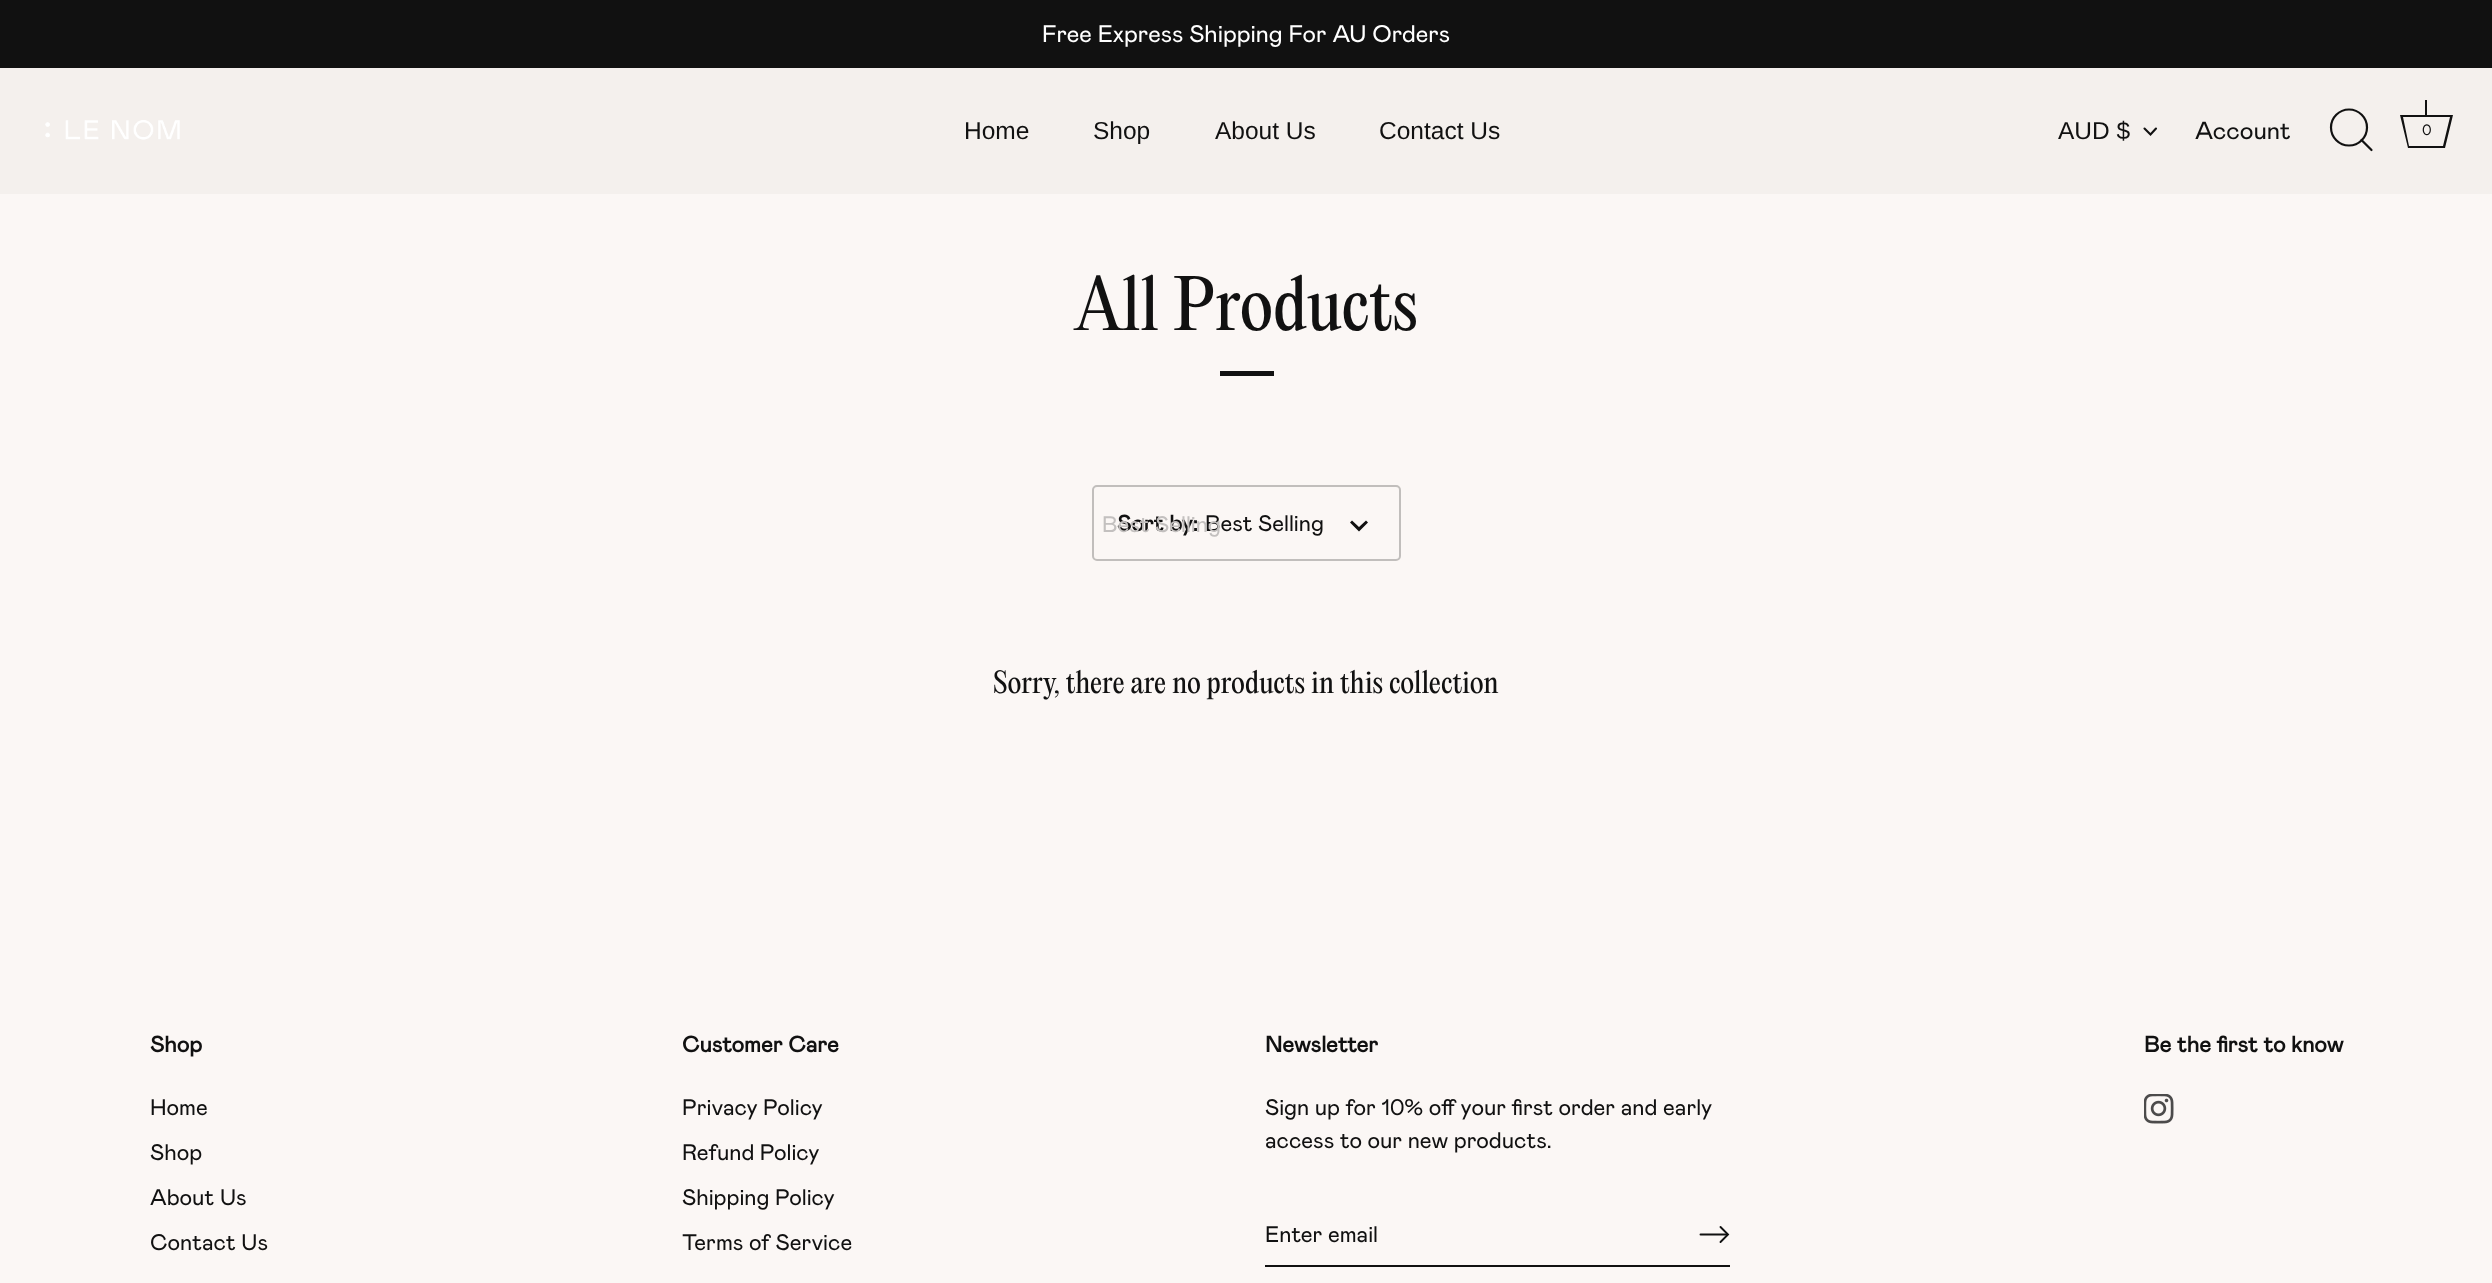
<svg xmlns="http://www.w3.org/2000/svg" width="2492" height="1283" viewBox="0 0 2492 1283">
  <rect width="100%" height="100%" fill="#fbf7f5"/>
  <rect x="0" y="68" width="2492" height="126" fill="#f4f0ed"/>
  <rect x="0" y="0" width="2492" height="68" fill="#111111"/>
  <text x="1042" y="42" font-family="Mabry" font-size="24" fill="#ffffff">Free Express Shipping For AU Orders</text>
  <image x="45" y="120" width="135" height="20" href="img1.png"/>
  <text x="964" y="139" font-family="Liberation Sans" font-size="24.5" fill="#111111">Home</text>
  <text x="1093" y="139" font-family="Liberation Sans" font-size="24.5" fill="#111111">Shop</text>
  <text x="1215" y="139" font-family="Liberation Sans" font-size="24.5" fill="#111111">About Us</text>
  <text x="1379" y="139" font-family="Liberation Sans" font-size="24.5" fill="#111111">Contact Us</text>
  <text x="2058" y="139" font-family="Liberation Sans" font-size="24.5" fill="#111111">AUD $</text>
  <path d="M2144.5 128.5L2150.5 134.5L2156 128.5" fill="none" stroke="#111111" stroke-width="2.1" stroke-linecap="round"/>
  <text x="2195" y="139" font-family="Mabry" font-size="24.5" fill="#111111">Account</text>
  <circle cx="2349" cy="127.5" r="18" fill="none" stroke="#111111" stroke-width="2.2"/>
  <path d="M2371.5 150L2361.5 140" fill="none" stroke="#111111" stroke-width="2.2" stroke-linecap="round" stroke-linejoin="round"/>
  <rect x="2425" y="100" width="2" height="15" fill="#111111"/>
  <path d="M2450 117L2443 146H2409L2403 117H2450M2453 115H2400L2408 148H2445Z" fill="#111111"/>
  <text x="2422" y="135" font-family="Figtree" font-size="15" fill="#111111">0</text>
  <text x="1075" y="330" font-family="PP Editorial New" font-size="67.5" fill="#111111">All Products</text>
  <rect x="1220" y="371" width="54" height="5" fill="#111111"/>
  <rect x="1093" y="486" width="307" height="74" rx="4" fill="none" stroke="#c1bebc" stroke-width="2"/>
  <text x="1117" y="531" font-family="Mabry" font-size="22.5" font-weight="bold" fill="#111111">Sort by:</text>
  <text x="1205" y="531" font-family="Mabry" font-size="22.5" fill="#111111">Best Selling</text>
  <text x="1102" y="532" font-family="Mabry" font-size="22.5" fill="#c3c0bf">Best Selling</text>
  <path d="M1352 520.5L1359 527L1366 520.5L1368 522.5L1359 531.5L1350 522.5Z" fill="#111111"/>
  <text x="993" y="693" font-family="PP Editorial New" font-size="28.1" fill="#111111">Sorry, there are no products in this collection</text>
  <text x="150" y="1052" font-family="Mabry" font-size="22.5" font-weight="bold" fill="#111111">Shop</text>
  <text x="150" y="1115" font-family="Mabry" font-size="22.5" fill="#111111">Home</text>
  <text x="150" y="1160" font-family="Mabry" font-size="22.5" fill="#111111">Shop</text>
  <text x="150" y="1205" font-family="Mabry" font-size="22.5" fill="#111111">About Us</text>
  <text x="150" y="1250" font-family="Mabry" font-size="22.5" fill="#111111">Contact Us</text>
  <text x="682" y="1052" font-family="Mabry" font-size="22.5" font-weight="bold" fill="#111111">Customer Care</text>
  <text x="682" y="1115" font-family="Mabry" font-size="22.5" fill="#111111">Privacy Policy</text>
  <text x="682" y="1160" font-family="Mabry" font-size="22.5" fill="#111111">Refund Policy</text>
  <text x="682" y="1205" font-family="Mabry" font-size="22.5" fill="#111111">Shipping Policy</text>
  <text x="682" y="1250" font-family="Mabry" font-size="22.5" fill="#111111">Terms of Service</text>
  <text x="1265" y="1052" font-family="Mabry" font-size="22.5" font-weight="bold" fill="#111111">Newsletter</text>
  <text x="1265" y="1115" font-family="Mabry" font-size="22.5" fill="#111111">Sign up for 10% off your first order and early</text>
  <text x="1265" y="1148" font-family="Mabry" font-size="22.5" fill="#111111">access to our new products.</text>
  <rect x="1265" y="1265" width="465" height="2" fill="#111111"/>
  <text x="1265" y="1242" font-family="Mabry" font-size="22.5" fill="#111111">Enter email</text>
  <path d="M1720.5 1242L1728 1234.5L1720.5 1227" fill="none" stroke="#111111" stroke-width="1.9" stroke-linecap="round"/>
  <path d="M1727 1234.5H1700.5" fill="none" stroke="#111111" stroke-width="1.9" stroke-linecap="round" stroke-linejoin="round"/>
  <text x="2144" y="1052" font-family="Mabry" font-size="22.5" font-weight="bold" fill="#111111">Be the first to know</text>
  <image x="2144" y="1094" width="30" height="30" href="img2.png"/>
</svg>
